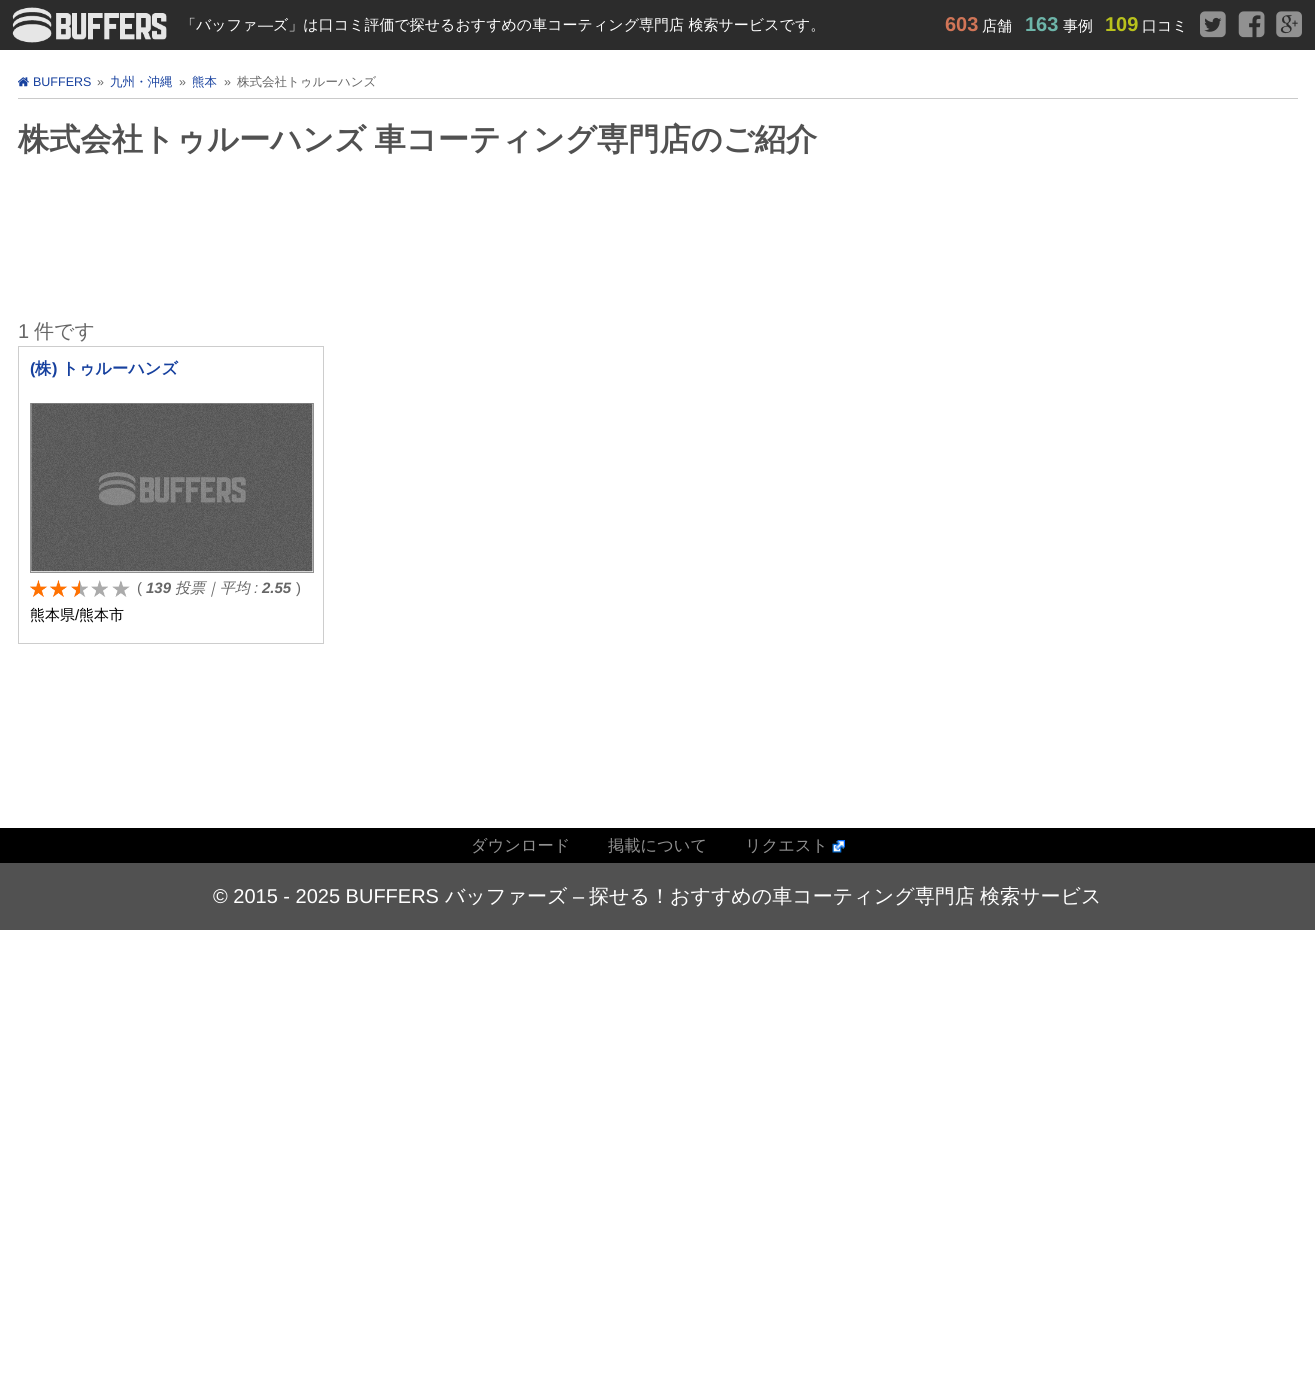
import math
import cairocffi as cairo

surface = cairo.ImageSurface(cairo.FORMAT_RGB24, 1315, 1394)
ctx = cairo.Context(surface)
options = cairo.FontOptions()
options.set_hint_metrics(cairo.HINT_METRICS_OFF)
options.set_hint_style(cairo.HINT_STYLE_NONE)
ctx.set_font_options(options)
ctx.set_miter_limit(4)


def rgb(r, g, b):
    ctx.set_source_rgb(r / 255, g / 255, b / 255)


def face(family, size, italic, bold):
    ctx.select_font_face(family, cairo.FONT_SLANT_ITALIC if italic else cairo.FONT_SLANT_NORMAL, cairo.FONT_WEIGHT_BOLD if bold else cairo.FONT_WEIGHT_NORMAL)
    ctx.set_font_size(size)


def label(x, y, s):
    ctx.move_to(x, y)
    ctx.show_text(s)


def tracked(x, y, s, letter, word):
    ctx.move_to(x, y)
    for ch in s:
        ctx.show_text(ch)
        ctx.rel_move_to(letter + word * (ch == ' '), 0)


def rect(x, y, w, h):
    ctx.rectangle(x, y, w, h)
    ctx.fill()


def image(path, x, y, w, h):
    ctx.save()
    ctx.set_source_surface(cairo.ImageSurface.create_from_png(path), x, y)
    ctx.rectangle(x, y, w, h)
    ctx.fill()
    ctx.restore()


rgb(255, 255, 255)
ctx.paint()
rgb(44, 44, 44)
rect(0, 0, 1315, 50)
image('image0.png', 12, 7, 155, 36)
face('WenQuanYi Zen Hei Medium', 15, 0, 0)
rgb(255, 255, 255)
label(181, 30, '「バッファ')
face('Liberation Sans', 15, 0, 0)
label(258, 30, '―')
face('WenQuanYi Zen Hei Medium', 15, 0, 0)
label(273, 30, 'ズ」は口コミ評価で探せるおすすめの車コーティング専門店 検索サービスです。')
face('Liberation Sans', 20, 0, 1)
rgb(209, 117, 87)
label(945, 31, '603')
face('WenQuanYi Zen Hei Medium', 15, 0, 0)
rgb(255, 255, 255)
label(982, 31, '店舗')
face('Liberation Sans', 20, 0, 1)
rgb(109, 181, 169)
label(1025, 31, '163')
face('WenQuanYi Zen Hei Medium', 15, 0, 0)
rgb(255, 255, 255)
label(1063, 31, '事例')
face('Liberation Sans', 20, 0, 1)
rgb(185, 194, 28)
label(1105, 31, '109')
face('WenQuanYi Zen Hei Medium', 15, 0, 0)
rgb(255, 255, 255)
label(1142, 31, '口コミ')
image('image1.png', 1200, 11, 26, 27)
image('image2.png', 1238, 11, 27, 27)
image('image3.png', 1276, 11, 26, 27)
rgb(202, 202, 202)
rect(18, 98, 1280, 1)
image('image4.png', 18, 77, 11, 10)
face('Liberation Sans', 12.5, 0, 0)
rgb(22, 64, 158)
label(33, 86, 'BUFFERS')
rgb(102, 102, 102)
label(97, 86, '»')
face('WenQuanYi Zen Hei Medium', 12.5, 0, 0)
rgb(22, 64, 158)
label(110, 86, '九州・沖縄')
face('Liberation Sans', 12.5, 0, 0)
rgb(102, 102, 102)
label(179, 86, '»')
face('WenQuanYi Zen Hei Medium', 12.5, 0, 0)
rgb(22, 64, 158)
label(192, 86, '熊本')
face('Liberation Sans', 12.5, 0, 0)
rgb(102, 102, 102)
label(224, 86, '»')
face('WenQuanYi Zen Hei Medium', 12.5, 0, 0)
label(237, 86, '株式会社トゥルーハンズ')
face('WenQuanYi Zen Hei', 31.25, 0, 1)
rgb(81, 81, 81)
tracked(18, 150, '株式会社トゥルーハンズ 車コーティング専門店のご紹介', 0, -1)
face('Liberation Sans', 20, 0, 0)
rgb(102, 102, 102)
label(18, 338, '1')
face('WenQuanYi Zen Hei Medium', 20, 0, 0)
label(34, 338, '件です')
ctx.rectangle(18.5, 346.5, 305, 297)
rgb(205, 205, 205)
ctx.set_line_width(1)
ctx.stroke()
face('Liberation Sans', 16.25, 0, 1)
rgb(22, 64, 158)
label(30, 374, '(')
face('WenQuanYi Zen Hei', 16.25, 0, 1)
label(35, 374, '株')
face('Liberation Sans', 16.25, 0, 1)
label(52, 374, ')')
face('WenQuanYi Zen Hei', 16.25, 0, 1)
label(62, 374, 'トゥルーハンズ')
ctx.rectangle(30.5, 403.5, 283, 169)
rgb(145, 145, 145)
ctx.stroke()
image('image5.png', 31, 403, 282, 169)
image('image6.png', 30, 580, 18, 17)
image('image6.png', 50, 580, 18, 17)
image('image7.png', 71, 580, 17, 18)
image('image8.png', 91, 580, 17, 17)
image('image9.png', 112, 580, 18, 17)
face('Liberation Sans', 15, 0, 0)
rgb(102, 102, 102)
label(137, 593, '(')
face('Liberation Sans', 15, 1, 1)
label(146, 593, '139')
face('WenQuanYi Zen Hei Medium', 15, 1, 0)
label(175, 593, '投票｜平均')
face('Liberation Sans', 15, 1, 0)
label(254, 593, ':')
face('Liberation Sans', 15, 1, 1)
label(262, 593, '2.55')
face('Liberation Sans', 15, 0, 0)
label(296, 593, ')')
face('WenQuanYi Zen Hei Medium', 15, 0, 0)
rgb(0, 0, 0)
label(30, 620, '熊本県')
face('Liberation Sans', 15, 0, 0)
label(75, 620, '/')
face('WenQuanYi Zen Hei Medium', 15, 0, 0)
label(79, 620, '熊本市')
rect(0, 828, 1315, 35)
face('WenQuanYi Zen Hei Medium', 16.25, 0, 0)
rgb(145, 145, 145)
label(471, 851, 'ダウンロード')
label(608, 851, '掲載について')
label(745, 851, 'リクエスト')
image('image10.png', 832, 840, 13, 13)
rgb(81, 81, 81)
rect(0, 863, 1315, 67)
face('Liberation Sans', 20, 0, 0)
rgb(255, 255, 255)
label(213, 903, '© 2015 - 2025 BUFFERS')
face('WenQuanYi Zen Hei Medium', 20, 0, 0)
label(445, 903, 'バッファーズ')
face('Liberation Sans', 20, 0, 0)
label(573, 903, '–')
face('WenQuanYi Zen Hei Medium', 20, 0, 0)
label(589, 903, '探せる！おすすめの車コーティング専門店')
label(980, 903, '検索サービス')
surface.write_to_png('render.png')
